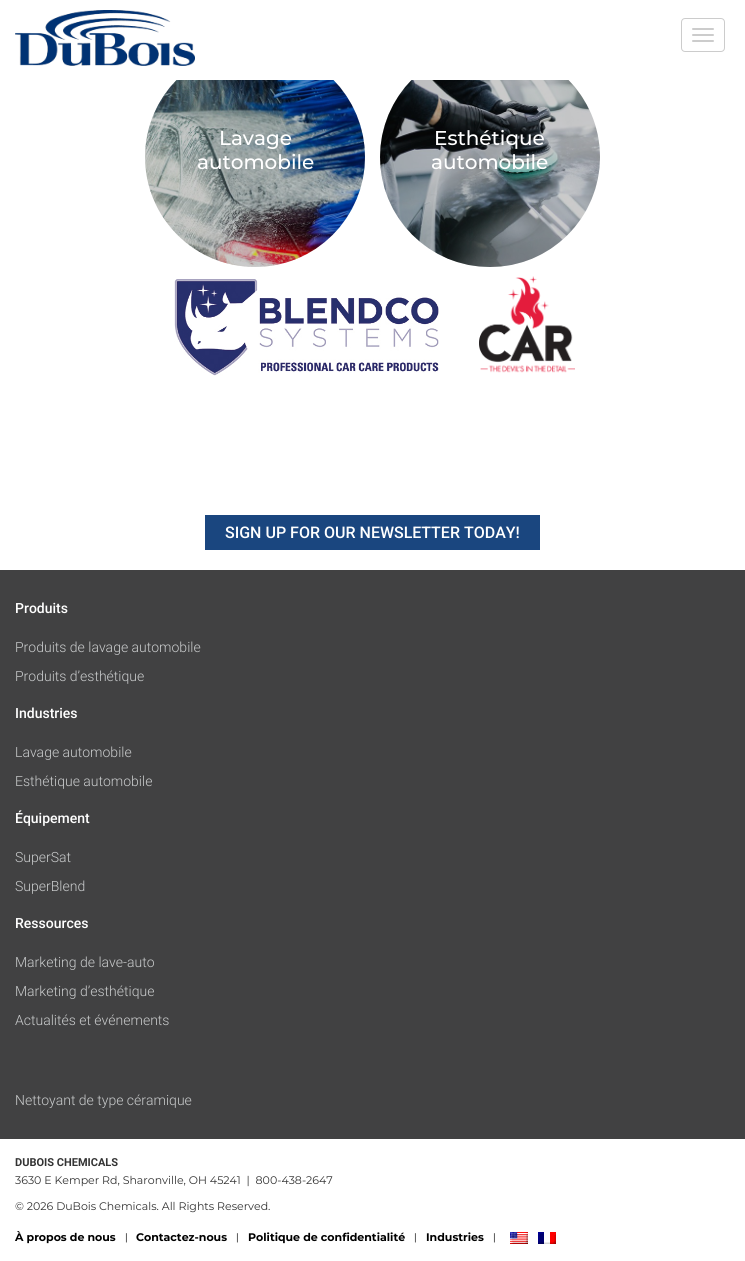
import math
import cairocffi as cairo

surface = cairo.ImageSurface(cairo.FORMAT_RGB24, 745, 1261)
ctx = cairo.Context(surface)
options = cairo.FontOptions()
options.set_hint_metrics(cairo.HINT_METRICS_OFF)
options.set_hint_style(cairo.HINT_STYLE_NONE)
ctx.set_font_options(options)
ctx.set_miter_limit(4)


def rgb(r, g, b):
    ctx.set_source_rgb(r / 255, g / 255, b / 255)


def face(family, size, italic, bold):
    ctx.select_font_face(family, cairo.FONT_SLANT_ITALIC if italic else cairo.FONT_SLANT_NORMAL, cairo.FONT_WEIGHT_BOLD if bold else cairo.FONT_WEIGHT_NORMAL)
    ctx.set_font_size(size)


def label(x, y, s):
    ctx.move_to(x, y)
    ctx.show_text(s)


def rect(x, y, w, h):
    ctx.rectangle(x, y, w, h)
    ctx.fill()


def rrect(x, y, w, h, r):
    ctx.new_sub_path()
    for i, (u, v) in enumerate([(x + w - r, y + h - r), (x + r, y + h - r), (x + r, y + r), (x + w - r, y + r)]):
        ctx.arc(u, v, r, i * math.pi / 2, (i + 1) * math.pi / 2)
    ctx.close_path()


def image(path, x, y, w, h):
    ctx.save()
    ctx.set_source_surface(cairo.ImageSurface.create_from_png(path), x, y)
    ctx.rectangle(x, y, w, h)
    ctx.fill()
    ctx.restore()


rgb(255, 255, 255)
ctx.paint()
image('image1.png', 145, 80, 220, 187)
ctx.set_source_rgba(0, 0, 0, 0.2)
ctx.arc(255, 157, 110, 0, 2 * math.pi)
ctx.fill()
image('image2.png', 380, 80, 220, 187)
ctx.arc(490, 157, 110, 0, 2 * math.pi)
ctx.fill()
rgb(255, 255, 255)
rect(176, 47, 393, 33)
image('image0.png', 15, 10, 180, 56)
rrect(681.5, 18.5, 43, 33, 3.5)
rgb(204, 204, 204)
ctx.set_line_width(1)
ctx.stroke()
rrect(692, 28, 22, 2, 1)
ctx.fill()
rrect(692, 34, 22, 2, 1)
ctx.fill()
rrect(692, 40, 22, 2, 1)
ctx.fill()
face('Montserrat Medium', 20, 0, 0)
rgb(255, 255, 255)
label(219, 145, 'Lavage')
label(197, 169, 'automobile')
label(434, 145, 'Esthétique')
label(431, 169, 'automobile')
image('image3.png', 174, 279, 265, 97)
image('image4.png', 479, 276, 96, 97)
rgb(26, 70, 127)
rect(205, 515, 335, 35)
face('Roboto Medium', 16, 0, 0)
rgb(255, 255, 255)
label(225, 538, 'SIGN UP FOR OUR NEWSLETTER TODAY!')
rgb(65, 65, 66)
rect(0, 570, 745, 569)
face('Roboto Medium', 14, 0, 0)
rgb(255, 255, 255)
label(15, 613, 'Produits')
face('Roboto Light', 14, 0, 0)
rgb(201, 203, 204)
label(15, 652, 'Produits de lavage automobile')
label(15, 681, 'Produits d’esthétique')
face('Roboto Medium', 14, 0, 0)
rgb(255, 255, 255)
label(15, 718, 'Industries')
face('Roboto Light', 14, 0, 0)
rgb(201, 203, 204)
label(15, 757, 'Lavage automobile')
label(15, 786, 'Esthétique automobile')
face('Roboto Medium', 14, 0, 0)
rgb(255, 255, 255)
label(15, 823, 'Équipement')
face('Roboto Light', 14, 0, 0)
rgb(201, 203, 204)
label(15, 862, 'SuperSat')
label(15, 891, 'SuperBlend')
face('Roboto Medium', 14, 0, 0)
rgb(255, 255, 255)
label(15, 928, 'Ressources')
face('Roboto Light', 14, 0, 0)
rgb(201, 203, 204)
label(15, 967, 'Marketing de lave-auto')
label(15, 996, 'Marketing d’esthétique')
label(15, 1025, 'Actualités et événements')
label(15, 1105, 'Nettoyant de type céramique')
face('Roboto', 11, 0, 1)
rgb(51, 51, 51)
label(15, 1166, 'DUBOIS CHEMICALS')
face('Montserrat', 11, 0, 0)
label(15, 1184, '3630 E Kemper Rd, Sharonville, OH 45241  |  800-438-2647')
label(15, 1210, '© 2026 DuBois Chemicals. All Rights Reserved.')
face('Montserrat', 11, 0, 1)
rgb(0, 0, 0)
label(15, 1241, 'À propos de nous')
face('Roboto', 11, 0, 0)
rgb(51, 51, 51)
label(125, 1241, '|')
face('Montserrat', 11, 0, 1)
rgb(0, 0, 0)
label(136, 1241, 'Contactez-nous')
face('Roboto', 11, 0, 0)
rgb(51, 51, 51)
label(236, 1241, '|')
face('Montserrat', 11, 0, 1)
rgb(0, 0, 0)
label(248, 1241, 'Politique de confidentialité')
face('Roboto', 11, 0, 0)
rgb(51, 51, 51)
label(414, 1241, '|')
face('Montserrat', 11, 0, 1)
rgb(0, 0, 0)
label(426, 1241, 'Industries')
face('Roboto', 11, 0, 0)
rgb(51, 51, 51)
label(493, 1241, '|')
image('image5.png', 510, 1232, 18, 12)
image('image6.png', 538, 1232, 18, 12)
surface.write_to_png('render.png')
